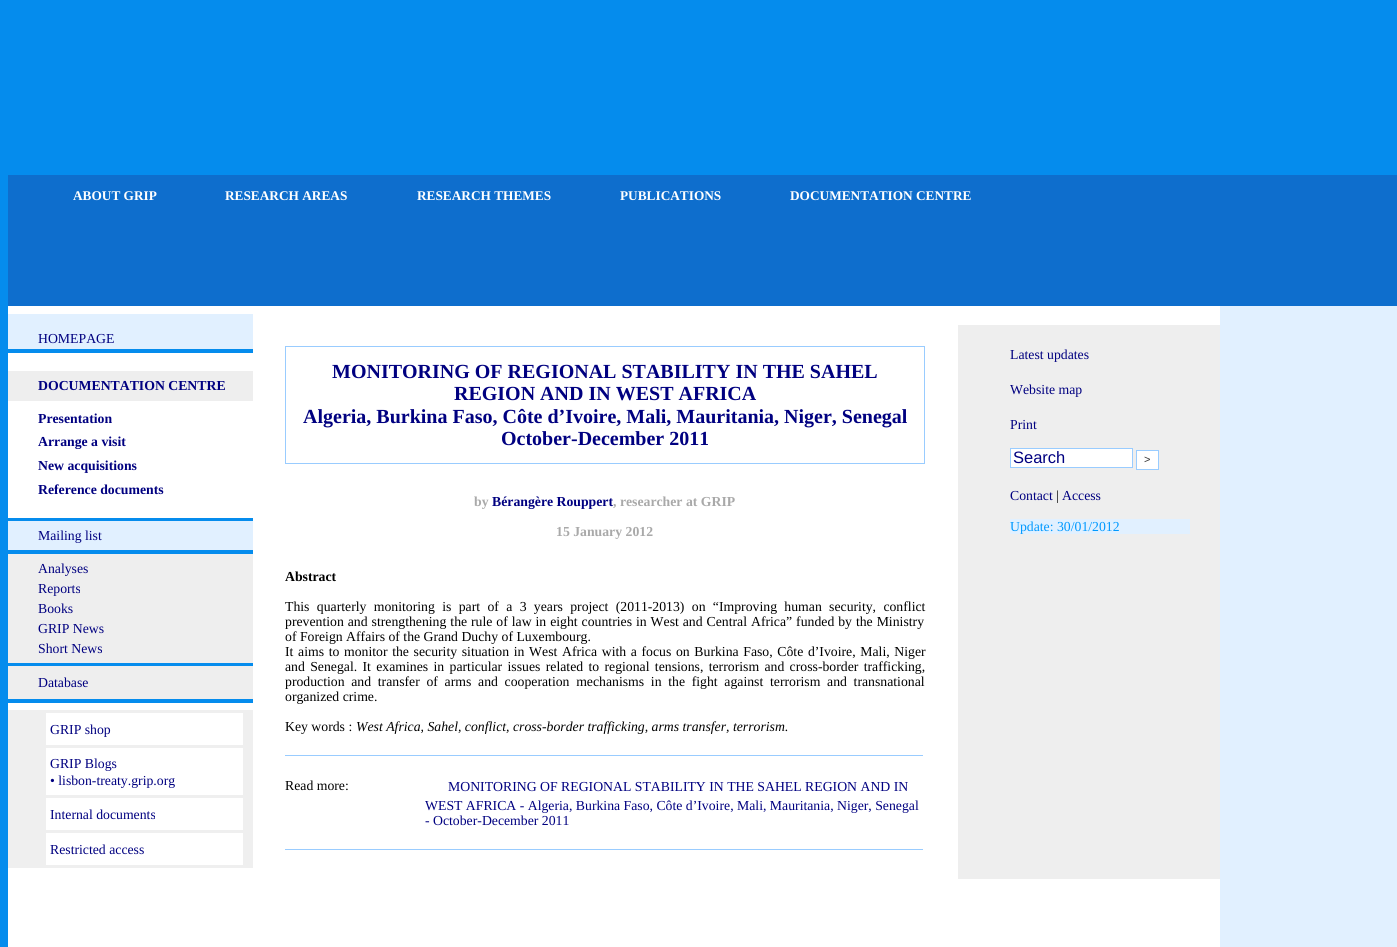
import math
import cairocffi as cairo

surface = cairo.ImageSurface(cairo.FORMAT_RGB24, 1397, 947)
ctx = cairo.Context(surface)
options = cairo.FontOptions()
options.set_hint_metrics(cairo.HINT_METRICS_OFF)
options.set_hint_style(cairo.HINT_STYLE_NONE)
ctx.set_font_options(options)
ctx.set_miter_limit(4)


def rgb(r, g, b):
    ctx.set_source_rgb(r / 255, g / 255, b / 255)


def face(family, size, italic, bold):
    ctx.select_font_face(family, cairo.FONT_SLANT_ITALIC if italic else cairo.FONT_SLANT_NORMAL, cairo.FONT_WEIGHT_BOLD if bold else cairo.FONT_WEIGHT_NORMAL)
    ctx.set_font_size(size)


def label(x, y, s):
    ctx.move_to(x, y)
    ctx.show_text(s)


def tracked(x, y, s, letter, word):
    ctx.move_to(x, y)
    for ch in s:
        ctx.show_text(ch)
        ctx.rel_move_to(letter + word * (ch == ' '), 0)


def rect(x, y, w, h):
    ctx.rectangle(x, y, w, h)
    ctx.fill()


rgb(255, 255, 255)
ctx.paint()
rgb(5, 140, 237)
rect(0, 0, 8, 947)
rect(8, 0, 1389, 175)
rgb(14, 110, 205)
rect(8, 175, 1389, 131)
face('Liberation Serif', 13.3, 0, 1)
rgb(255, 255, 255)
label(73, 200, 'ABOUT GRIP')
label(225, 200, 'RESEARCH AREAS')
label(417, 200, 'RESEARCH THEMES')
label(620, 200, 'PUBLICATIONS')
label(790, 200, 'DOCUMENTATION CENTRE')
rgb(225, 240, 255)
rect(8, 314, 245, 35)
face('Liberation Serif', 13.75, 0, 0)
rgb(0, 0, 128)
label(38, 343, 'HOMEPAGE')
rgb(5, 140, 237)
rect(8, 349, 245, 4)
rgb(238, 238, 238)
rect(8, 371, 245, 30)
face('Liberation Serif', 13.75, 0, 1)
rgb(0, 0, 128)
label(38, 390, 'DOCUMENTATION CENTRE')
label(38, 423, 'Presentation')
label(38, 446, 'Arrange a visit')
label(38, 470, 'New acquisitions')
label(38, 494, 'Reference documents')
rgb(5, 140, 237)
rect(8, 518, 245, 3)
rgb(225, 240, 255)
rect(8, 521, 245, 29)
face('Liberation Serif', 13.75, 0, 0)
rgb(0, 0, 128)
label(38, 540, 'Mailing list')
rgb(5, 140, 237)
rect(8, 550, 245, 4)
rgb(238, 238, 238)
rect(8, 554, 245, 109)
rgb(0, 0, 128)
label(38, 573, 'Analyses')
label(38, 593, 'Reports')
label(38, 613, 'Books')
label(38, 633, 'GRIP News')
label(38, 653, 'Short News')
rgb(5, 140, 237)
rect(8, 663, 245, 3)
rgb(238, 238, 238)
rect(8, 666, 245, 33)
rgb(0, 0, 128)
label(38, 687, 'Database')
rgb(5, 140, 237)
rect(8, 699, 245, 4)
rgb(239, 239, 239)
rect(8, 710, 245, 158)
rgb(255, 255, 255)
rect(46, 713, 197, 32)
rgb(0, 0, 128)
label(50, 734, 'GRIP shop')
rgb(255, 255, 255)
rect(46, 748, 197, 47)
rgb(0, 0, 128)
label(50, 768, 'GRIP Blogs')
label(50, 785, '• lisbon-treaty.grip.org')
rgb(255, 255, 255)
rect(46, 798, 197, 32)
rgb(0, 0, 128)
label(50, 819, 'Internal documents')
rgb(255, 255, 255)
rect(46, 833, 197, 32)
rgb(0, 0, 128)
label(50, 854, 'Restricted access')
ctx.rectangle(285.5, 346.5, 639, 117)
rgb(153, 204, 255)
ctx.set_line_width(1)
ctx.stroke()
face('Liberation Serif', 20, 0, 1)
rgb(0, 0, 128)
label(332, 378, 'MONITORING OF REGIONAL STABILITY IN THE SAHEL')
label(454, 400, 'REGION AND IN WEST AFRICA')
label(303, 423, 'Algeria, Burkina Faso, Côte d’Ivoire, Mali, Mauritania, Niger, Senegal')
label(501, 445, 'October-December 2011')
face('Liberation Serif', 13.75, 0, 1)
rgb(169, 169, 169)
label(474, 506, 'by')
rgb(0, 0, 128)
label(492, 506, 'Bérangère Rouppert')
rgb(169, 169, 169)
label(613, 506, ', researcher at GRIP')
label(556, 536, '15 January 2012')
rgb(0, 0, 0)
label(285, 581, 'Abstract')
face('Liberation Serif', 13.75, 0, 0)
tracked(285, 611, 'This quarterly monitoring is part of a 3 years project (2011-2013) on “Improving human security, conflict', 0, 3.9)
tracked(285, 626, 'prevention and strengthening the rule of law in eight countries in West and Central Africa” funded by the Ministry', 0, 0.5)
label(285, 641, 'of Foreign Affairs of the Grand Duchy of Luxembourg.')
tracked(285, 656, 'It aims to monitor the security situation in West Africa with a focus on Burkina Faso, Côte d’Ivoire, Mali, Niger', 0, 1.2)
tracked(285, 671, 'and Senegal. It examines in particular issues related to regional tensions, terrorism and cross-border trafficking,', 0, 1.9)
tracked(285, 686, 'production and transfer of arms and cooperation mechanisms in the fight against terrorism and transnational', 0, 3.25)
label(285, 701, 'organized crime.')
label(285, 731, 'Key words :')
face('Liberation Serif', 13.75, 1, 0)
label(356, 731, 'West Africa, Sahel, conflict, cross-border trafficking, arms transfer, terrorism.')
rgb(153, 204, 255)
rect(285, 755, 638, 1)
face('Liberation Serif', 13.75, 0, 0)
rgb(0, 0, 0)
label(285, 790, 'Read more:')
rgb(0, 0, 128)
label(448, 791, 'MONITORING OF REGIONAL STABILITY IN THE SAHEL REGION AND IN')
label(425, 810, 'WEST AFRICA - Algeria, Burkina Faso, Côte d’Ivoire, Mali, Mauritania, Niger, Senegal')
label(425, 825, '- October-December 2011')
rgb(153, 204, 255)
rect(285, 849, 638, 1)
rgb(238, 238, 238)
rect(958, 325, 262, 554)
rgb(0, 0, 128)
label(1010, 359, 'Latest updates')
label(1010, 394, 'Website map')
label(1010, 429, 'Print')
rgb(255, 255, 255)
ctx.rectangle(1010.5, 448.5, 122, 19)
ctx.fill_preserve()
rgb(153, 204, 255)
ctx.stroke()
face('Liberation Sans', 16.5, 0, 0)
rgb(0, 0, 128)
label(1013, 463, 'Search')
rgb(255, 255, 255)
ctx.rectangle(1136.5, 450.5, 22, 19)
ctx.fill_preserve()
rgb(153, 204, 255)
ctx.stroke()
face('Liberation Sans', 11, 0, 0)
rgb(51, 51, 51)
label(1144, 463, '>')
face('Liberation Serif', 13.75, 0, 0)
rgb(0, 0, 128)
label(1010, 500, 'Contact')
rgb(0, 0, 0)
label(1056, 500, '|')
rgb(0, 0, 128)
label(1062, 500, 'Access')
rgb(225, 240, 255)
rect(1010, 519, 180, 15)
rgb(0, 153, 255)
label(1010, 531, 'Update: 30/01/2012')
rgb(225, 240, 255)
rect(1220, 306, 177, 641)
surface.write_to_png('render.png')
